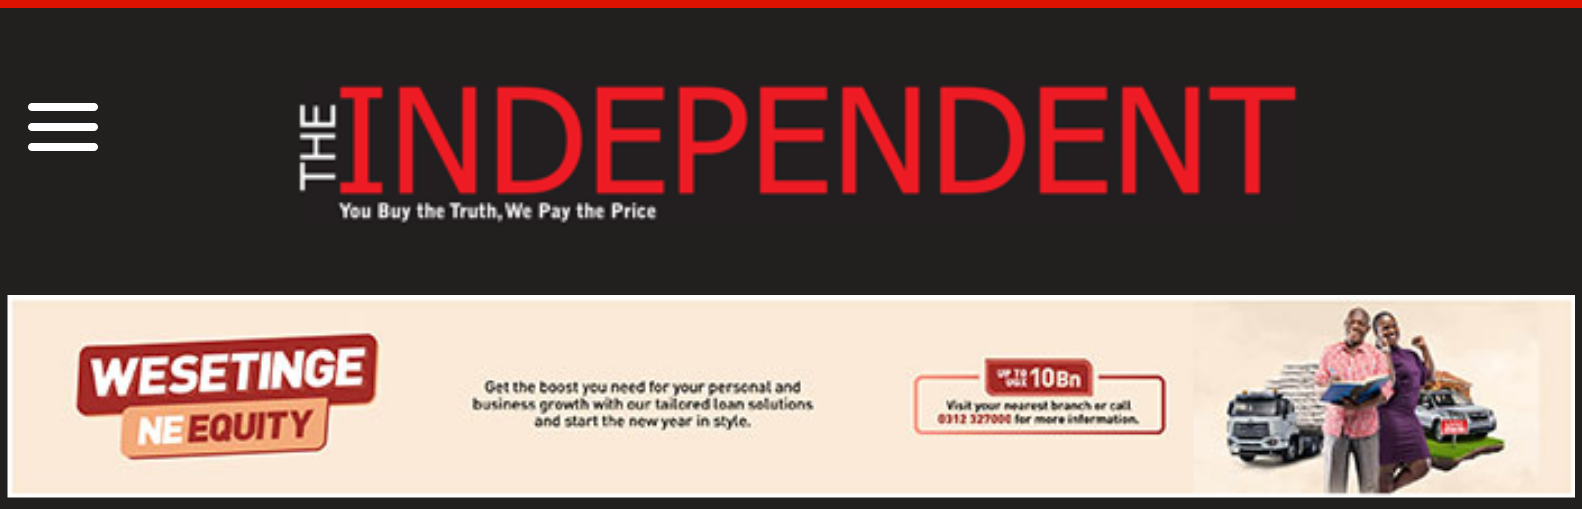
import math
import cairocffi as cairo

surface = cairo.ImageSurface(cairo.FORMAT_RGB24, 1582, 509)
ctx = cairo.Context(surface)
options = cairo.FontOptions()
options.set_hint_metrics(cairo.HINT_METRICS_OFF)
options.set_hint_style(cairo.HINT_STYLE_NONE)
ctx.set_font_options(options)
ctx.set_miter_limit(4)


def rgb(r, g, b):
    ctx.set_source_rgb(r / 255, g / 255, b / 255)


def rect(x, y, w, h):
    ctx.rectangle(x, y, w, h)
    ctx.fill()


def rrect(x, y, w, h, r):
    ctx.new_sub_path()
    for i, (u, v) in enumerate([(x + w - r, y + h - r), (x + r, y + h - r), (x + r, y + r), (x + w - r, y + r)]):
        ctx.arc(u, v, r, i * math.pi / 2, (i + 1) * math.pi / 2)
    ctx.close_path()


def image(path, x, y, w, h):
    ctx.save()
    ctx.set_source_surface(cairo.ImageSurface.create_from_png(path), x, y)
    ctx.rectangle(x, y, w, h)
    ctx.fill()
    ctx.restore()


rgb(33, 32, 30)
ctx.paint()
rgb(221, 18, 1)
rect(0, 0, 1582, 8)
rgb(255, 255, 255)
rrect(28, 103, 70, 8, 4)
ctx.fill()
rrect(28, 123, 70, 8, 4)
ctx.fill()
rrect(28, 143, 70, 8, 4)
ctx.fill()
image('image0.png', 298, 83, 1000, 143)
image('image1.png', 7, 295, 1568, 203)
surface.write_to_png('render.png')
